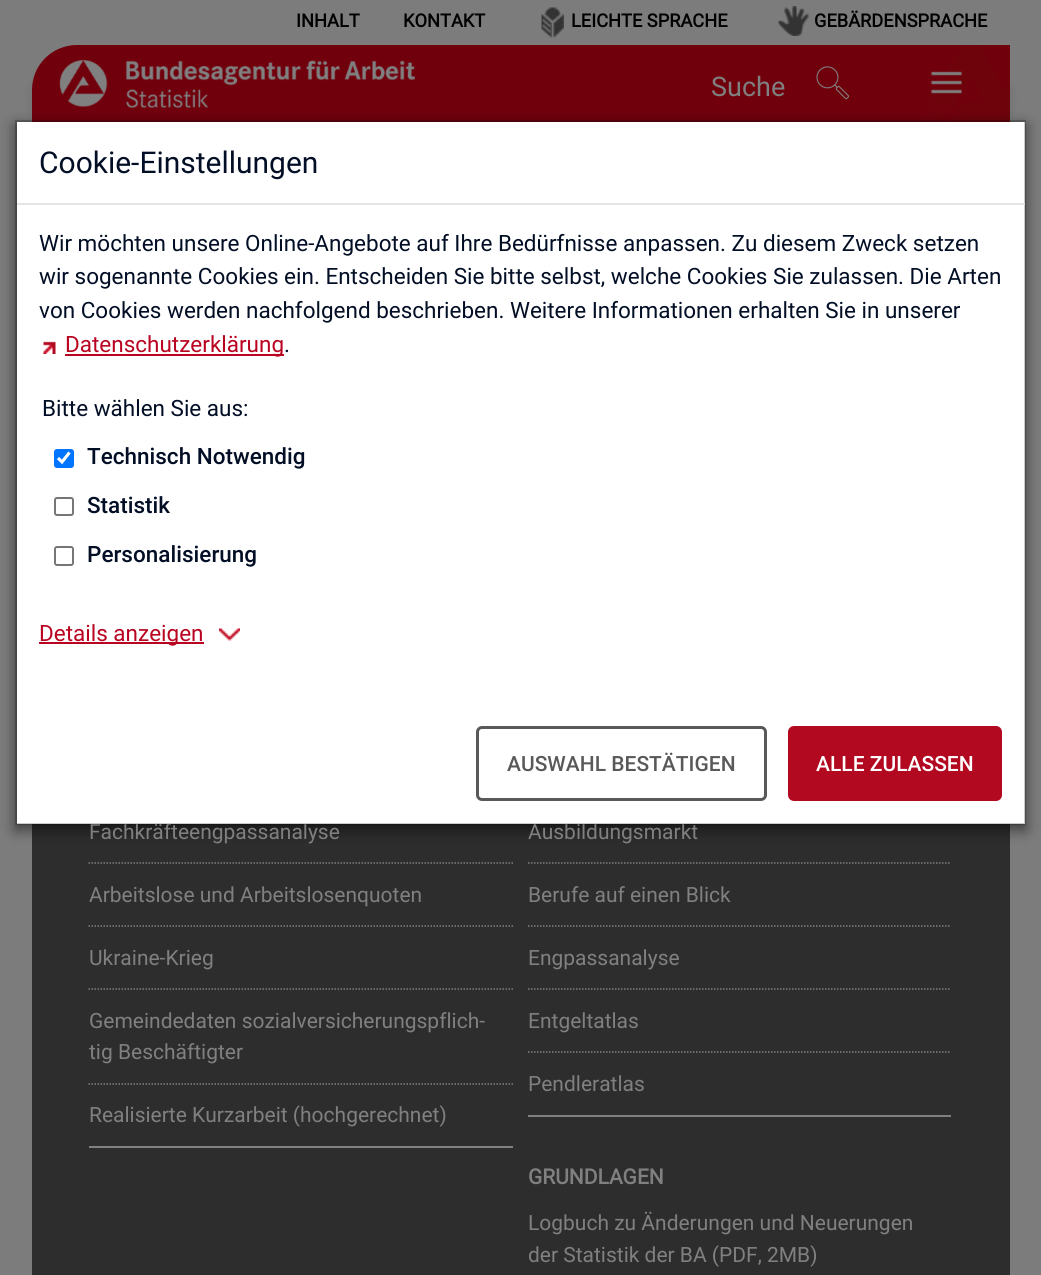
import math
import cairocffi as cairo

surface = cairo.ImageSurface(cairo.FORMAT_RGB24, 1041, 1275)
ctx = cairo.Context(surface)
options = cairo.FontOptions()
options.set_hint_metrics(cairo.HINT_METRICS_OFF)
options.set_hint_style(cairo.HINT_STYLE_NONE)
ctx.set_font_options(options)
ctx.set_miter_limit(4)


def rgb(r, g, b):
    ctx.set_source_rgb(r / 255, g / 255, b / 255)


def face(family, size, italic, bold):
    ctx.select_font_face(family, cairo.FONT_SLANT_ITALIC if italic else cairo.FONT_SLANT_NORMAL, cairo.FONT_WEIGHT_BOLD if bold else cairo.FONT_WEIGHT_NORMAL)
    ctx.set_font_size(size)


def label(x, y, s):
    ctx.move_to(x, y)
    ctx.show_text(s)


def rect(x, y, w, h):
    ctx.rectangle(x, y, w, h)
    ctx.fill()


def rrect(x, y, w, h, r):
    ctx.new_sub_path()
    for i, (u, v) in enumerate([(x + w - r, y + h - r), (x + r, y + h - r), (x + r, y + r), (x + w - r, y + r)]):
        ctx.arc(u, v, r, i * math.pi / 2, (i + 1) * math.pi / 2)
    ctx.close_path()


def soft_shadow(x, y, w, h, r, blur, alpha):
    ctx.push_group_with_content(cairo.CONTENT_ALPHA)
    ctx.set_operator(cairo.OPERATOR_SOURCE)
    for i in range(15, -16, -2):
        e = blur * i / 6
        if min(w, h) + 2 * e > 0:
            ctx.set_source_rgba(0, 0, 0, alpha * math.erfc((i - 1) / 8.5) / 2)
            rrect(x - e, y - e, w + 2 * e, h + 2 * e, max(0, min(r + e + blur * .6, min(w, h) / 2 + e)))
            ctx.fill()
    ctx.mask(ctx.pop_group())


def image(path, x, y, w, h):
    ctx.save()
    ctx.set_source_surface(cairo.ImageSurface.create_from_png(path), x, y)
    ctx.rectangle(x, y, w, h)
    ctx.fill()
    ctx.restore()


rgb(124, 124, 124)
ctx.paint()
face('Roboto', 18.25, 0, 1)
rgb(0, 0, 0)
label(296, 27, 'INHALT')
label(403, 27, 'KONTAKT')
image('image0.png', 541, 7, 23, 31)
label(571, 27, 'LEICHTE SPRACHE')
image('image1.png', 778, 6, 31, 30)
label(814, 27, 'GEBÄRDENSPRACHE')
rgb(0, 0, 0)
soft_shadow(35, 66, 972, 71, 42, 7.5, 0.16)
rgb(113, 0, 13)
ctx.new_path()
ctx.move_to(77, 45)
ctx.line_to(1010, 45)
ctx.line_to(1010, 122)
ctx.line_to(32, 122)
ctx.line_to(32, 90)
ctx.curve_to(32, 65, 52, 45, 77, 45)
ctx.close_path()
ctx.fill()
gradient = cairo.LinearGradient(946, 152, 970, 110)
gradient.add_color_stop_rgba(0.2, 0.443, 0, 0.051, 1)
gradient.add_color_stop_rgba(0.97, 0.431, 0.012, 0.047, 1)
ctx.set_source(gradient)
ctx.new_path()
ctx.move_to(944, 121)
ctx.line_to(970, 77)
ctx.line_to(985, 102)
ctx.curve_to(960, 102, 963, 100, 950, 121)
ctx.line_to(1010, 121)
ctx.line_to(1010, 98)
ctx.line_to(978, 45)
ctx.line_to(963, 45)
ctx.line_to(917, 121)
ctx.close_path()
ctx.fill()
image('image2.png', 59, 59, 356, 49)
face('Roboto', 27, 0, 0)
rgb(128, 128, 128)
label(711, 96, 'Suche')
image('image3.png', 816, 66, 34, 34)
image('image4.png', 931, 71, 31, 23)
rgb(45, 45, 45)
rect(32, 824, 978, 451)
rgb(0, 0, 0)
soft_shadow(15, 125, 1011, 705, 0, 7, 0.5)
face('Roboto', 21, 0, 0)
rgb(128, 128, 128)
label(89, 839, 'Fachkräfteengpassanalyse')
label(528, 839, 'Ausbildungsmarkt')
rgb(255, 255, 255)
rect(17, 122, 1008, 702)
ctx.rectangle(16, 121, 1009, 703)
ctx.set_source_rgba(0, 0, 0, 0.2)
ctx.stroke()
rgb(229, 229, 229)
rect(17, 203, 1008, 2)
face('Roboto', 30, 0, 0)
rgb(2, 14, 37)
label(39, 173, 'Cookie-Einstellungen')
face('Roboto', 22.5, 0, 0)
label(39, 251, 'Wir möchten unsere Online-Angebote auf Ihre Bedürfnisse anpassen. Zu diesem Zweck setzen')
label(39, 284, 'wir sogenannte Cookies ein. Entscheiden Sie bitte selbst, welche Cookies Sie zulassen. Die Arten')
label(39, 318, 'von Cookies werden nachfolgend beschrieben. Weitere Informationen erhalten Sie in unserer')
image('image5.png', 43, 341, 13, 13)
rgb(185, 3, 32)
rect(65, 354, 219, 2)
label(65, 352, 'Datenschutzerklärung')
rgb(2, 14, 37)
label(284, 352, '.')
label(42, 416, 'Bitte wählen Sie aus:')
rgb(0, 117, 255)
rrect(54, 449, 20, 19, 3)
ctx.fill()
ctx.new_path()
ctx.move_to(58, 458)
ctx.line_to(62, 462)
ctx.line_to(69.5, 452.5)
rgb(255, 255, 255)
ctx.set_line_width(3.1)
ctx.stroke()
face('Roboto Medium', 22.5, 0, 0)
rgb(2, 14, 37)
label(87, 464, 'Technisch Notwendig')
rrect(55, 498, 18, 17, 2)
rgb(118, 118, 118)
ctx.set_line_width(2)
ctx.stroke()
rgb(2, 14, 37)
label(87, 513, 'Statistik')
rrect(55, 547, 18, 18, 2)
rgb(118, 118, 118)
ctx.stroke()
rgb(2, 14, 37)
label(87, 562, 'Personalisierung')
rgb(185, 3, 32)
rect(39, 642, 165, 2)
face('Roboto', 22.5, 0, 0)
label(39, 641, 'Details anzeigen')
image('image6.png', 219, 628, 21, 13)
rrect(477.5, 727.5, 288, 72, 4.5)
rgb(89, 89, 89)
ctx.set_line_width(3)
ctx.stroke()
face('Roboto Medium', 21, 0, 0)
label(507, 771, 'AUSWAHL BESTÄTIGEN')
rgb(179, 9, 32)
rrect(788, 726, 214, 75, 6)
ctx.fill()
rgb(255, 255, 255)
label(816, 771, 'ALLE ZULASSEN')
ctx.new_path()
ctx.move_to(88.5, 863)
ctx.line_to(513, 863)
rgb(128, 128, 128)
ctx.set_line_width(1.5)
ctx.set_dash([1.5, 1.5])
ctx.stroke()
ctx.new_path()
ctx.move_to(88.5, 926)
ctx.line_to(513, 926)
ctx.stroke()
face('Roboto', 21, 0, 0)
label(89, 902, 'Arbeitslose und Arbeitslosenquoten')
ctx.new_path()
ctx.move_to(88.5, 989)
ctx.line_to(513, 989)
ctx.stroke()
label(89, 965, 'Ukraine-Krieg')
ctx.new_path()
ctx.move_to(88.5, 1084)
ctx.line_to(513, 1084)
ctx.stroke()
label(89, 1028, 'Gemeindedaten sozialversicherungspflich-')
label(89, 1059, 'tig Beschäftigter')
rect(89, 1146, 424, 2)
label(89, 1122, 'Realisierte Kurzarbeit (hochgerechnet)')
ctx.new_path()
ctx.move_to(528, 863)
ctx.line_to(951, 863)
ctx.stroke()
ctx.new_path()
ctx.move_to(528, 926)
ctx.line_to(951, 926)
ctx.stroke()
label(528, 902, 'Berufe auf einen Blick')
ctx.new_path()
ctx.move_to(528, 989)
ctx.line_to(951, 989)
ctx.stroke()
label(528, 965, 'Engpassanalyse')
ctx.new_path()
ctx.move_to(528, 1052)
ctx.line_to(951, 1052)
ctx.stroke()
label(528, 1028, 'Entgeltatlas')
rect(528, 1115, 423, 2)
label(528, 1091, 'Pendleratlas')
face('Roboto', 21, 0, 1)
label(528, 1184, 'GRUNDLAGEN')
face('Roboto', 21, 0, 0)
label(528, 1230, 'Logbuch zu Änderungen und Neuerungen')
label(528, 1262, 'der Statistik der BA (PDF, 2MB)')
surface.write_to_png('render.png')
